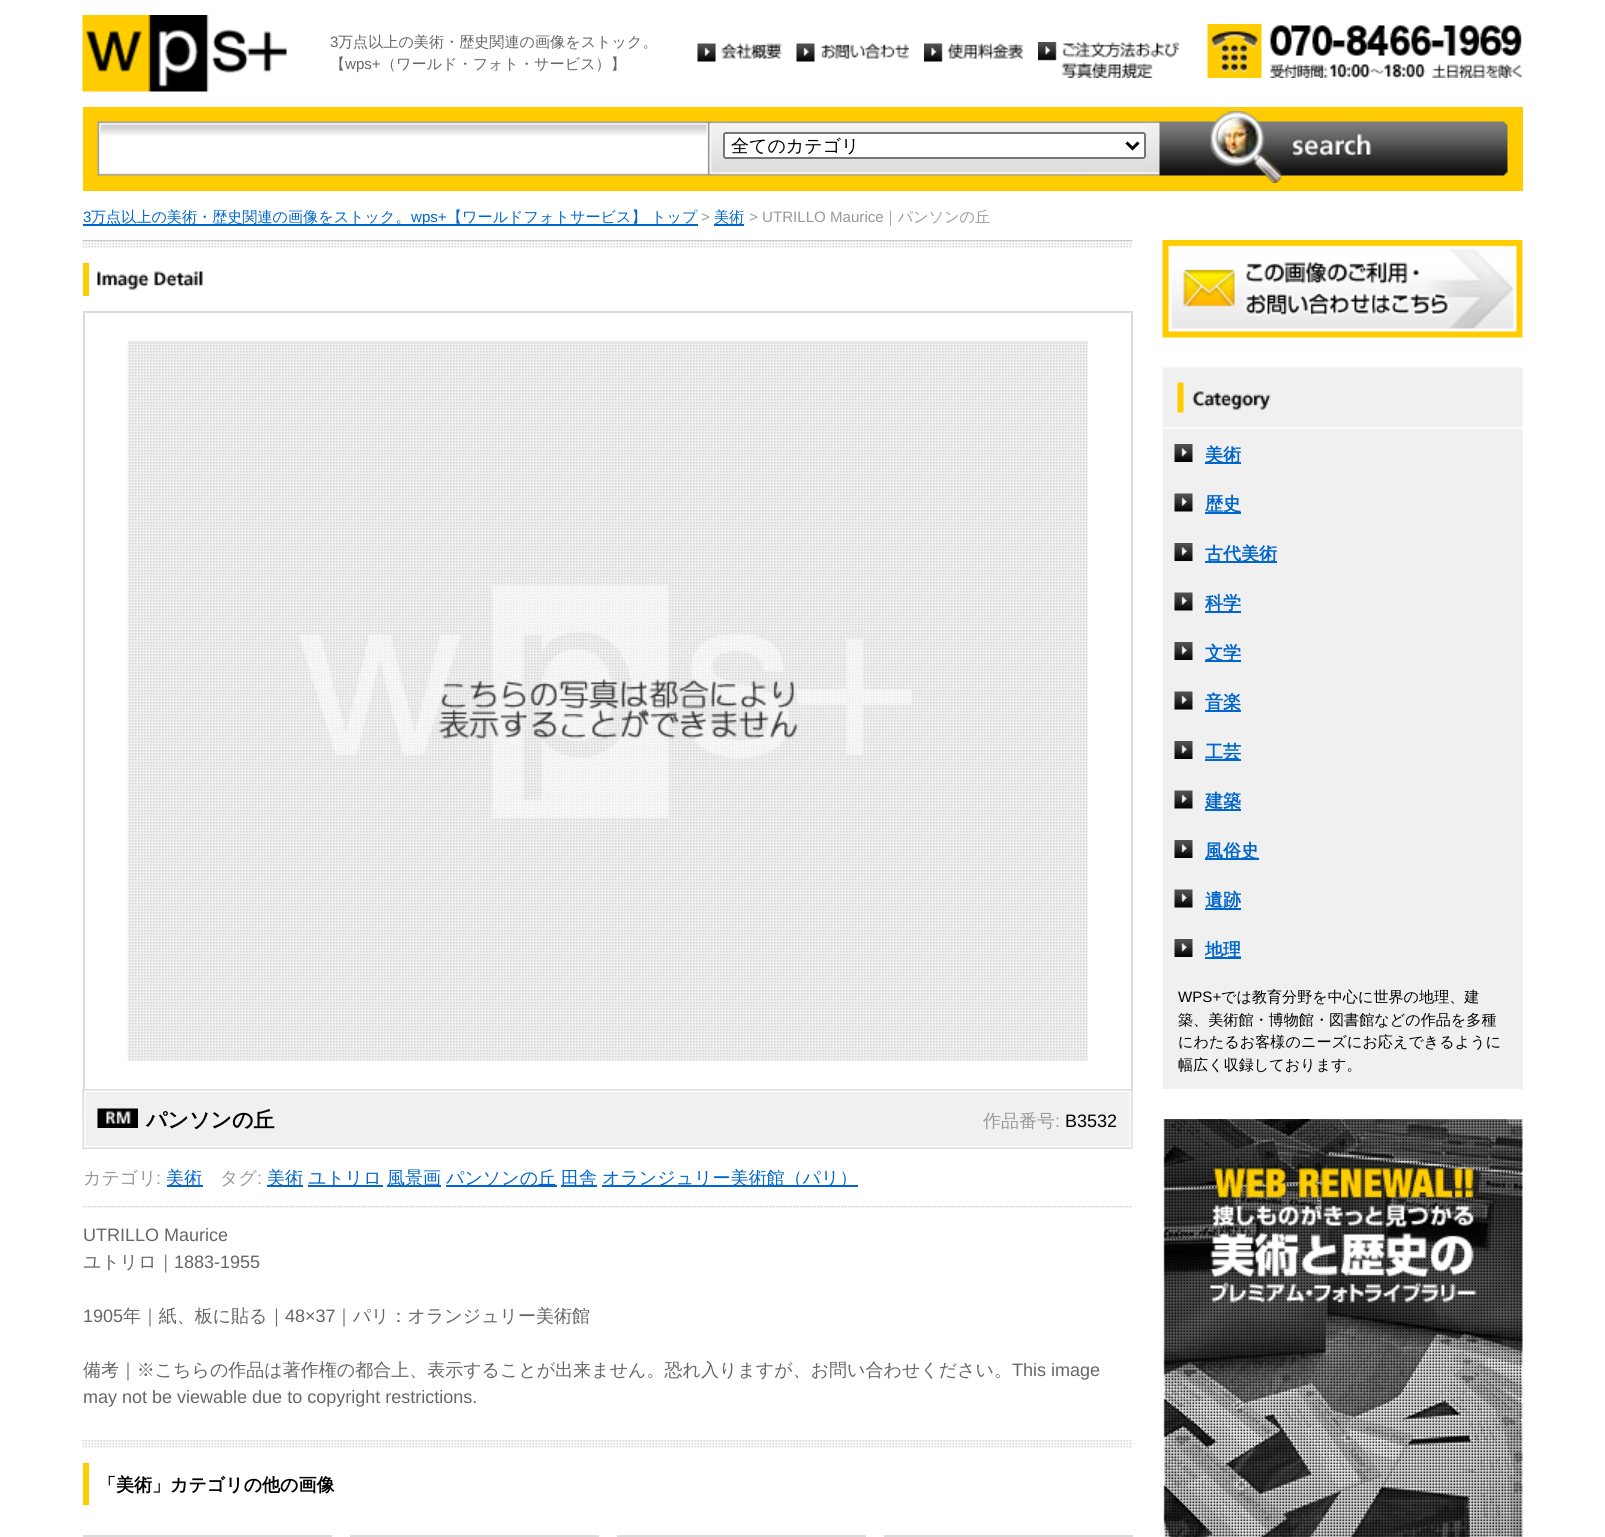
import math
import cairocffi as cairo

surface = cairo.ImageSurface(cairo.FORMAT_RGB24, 1605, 1537)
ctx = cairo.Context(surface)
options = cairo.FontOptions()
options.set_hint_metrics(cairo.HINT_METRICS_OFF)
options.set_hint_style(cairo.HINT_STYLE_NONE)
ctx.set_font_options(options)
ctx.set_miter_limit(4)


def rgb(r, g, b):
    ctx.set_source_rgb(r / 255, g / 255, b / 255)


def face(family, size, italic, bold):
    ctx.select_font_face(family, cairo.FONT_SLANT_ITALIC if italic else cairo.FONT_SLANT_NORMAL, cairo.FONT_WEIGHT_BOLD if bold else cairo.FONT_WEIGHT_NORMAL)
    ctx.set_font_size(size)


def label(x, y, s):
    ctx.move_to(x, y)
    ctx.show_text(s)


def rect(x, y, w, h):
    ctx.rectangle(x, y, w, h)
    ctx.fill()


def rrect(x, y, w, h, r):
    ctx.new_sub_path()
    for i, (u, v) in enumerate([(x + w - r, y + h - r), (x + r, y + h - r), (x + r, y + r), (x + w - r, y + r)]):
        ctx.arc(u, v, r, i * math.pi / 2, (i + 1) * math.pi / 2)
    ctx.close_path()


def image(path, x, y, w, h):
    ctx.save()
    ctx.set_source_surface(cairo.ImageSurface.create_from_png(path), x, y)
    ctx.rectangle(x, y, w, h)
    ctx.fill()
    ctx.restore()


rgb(255, 255, 255)
ctx.paint()
image('image0.png', 82, 15, 205, 77)
face('Liberation Sans', 15.1, 0, 0)
rgb(102, 102, 102)
label(330, 47, '3')
face('WenQuanYi Zen Hei Medium', 15.1, 0, 0)
label(338, 47, '万点以上の美術・歴史関連の画像をストック。')
label(330, 69, '【')
face('Liberation Sans', 15.1, 0, 0)
label(345, 69, 'wps+')
face('WenQuanYi Zen Hei Medium', 15.1, 0, 0)
label(381, 69, '（ワールド・フォト・サービス）】')
image('image1.png', 697, 43, 85, 19)
image('image2.png', 796, 43, 113, 19)
image('image3.png', 924, 43, 99, 19)
image('image4.png', 1038, 42, 141, 36)
image('image5.png', 1207, 24, 316, 54)
rgb(255, 204, 0)
rect(83, 107, 1440, 84)
image('image6.png', 97, 121, 613, 55)
image('image7.png', 708, 121, 452, 55)
rgb(255, 255, 255)
rrect(724, 133, 421, 25, 2)
ctx.fill_preserve()
rgb(118, 118, 118)
ctx.stroke()
ctx.new_path()
ctx.move_to(1126.5, 142.5)
ctx.line_to(1132.5, 148.5)
ctx.line_to(1138.5, 142.5)
rgb(0, 0, 0)
ctx.set_line_width(3)
ctx.stroke()
face('WenQuanYi Zen Hei Medium', 18, 0, 0)
label(731, 152, '全てのカテゴリ')
image('image8.png', 1159, 111, 349, 72)
face('Liberation Sans', 15.1, 0, 0)
rgb(0, 102, 204)
label(83, 222, '3')
rect(83, 224, 615, 2)
face('WenQuanYi Zen Hei Medium', 15.1, 0, 0)
label(91, 222, '万点以上の美術・歴史関連の画像をストック。')
face('Liberation Sans', 15.1, 0, 0)
label(411, 222, 'wps+')
face('WenQuanYi Zen Hei Medium', 15.1, 0, 0)
label(447, 222, '【ワールドフォトサービス】 トップ')
face('Liberation Sans', 15.1, 0, 0)
rgb(153, 153, 153)
label(701, 222, '>')
face('WenQuanYi Zen Hei Medium', 15.1, 0, 0)
rgb(0, 102, 204)
label(714, 222, '美術')
rect(714, 224, 30, 2)
face('Liberation Sans', 15.1, 0, 0)
rgb(153, 153, 153)
label(749, 222, '> UTRILLO Maurice')
face('WenQuanYi Zen Hei Medium', 15.1, 0, 0)
label(883, 222, '｜パンソンの丘')
image('image9.png', 1162, 240, 361, 98)
image('image10.png', 1162, 367, 361, 61)
rgb(240, 240, 240)
rect(1163, 429, 360, 660)
image('image11.png', 1174, 444, 19, 18)
rgb(0, 102, 204)
rect(1205, 462, 36, 2)
face('WenQuanYi Zen Hei', 18, 0, 1)
label(1205, 461, '美術')
image('image12.png', 1174, 493, 19, 19)
rect(1205, 512, 36, 2)
label(1205, 510, '歴史')
image('image11.png', 1174, 543, 19, 18)
rect(1205, 561, 72, 2)
label(1205, 560, '古代美術')
image('image12.png', 1174, 592, 19, 19)
rect(1205, 611, 36, 2)
label(1205, 609, '科学')
image('image11.png', 1174, 642, 19, 18)
rect(1205, 660, 36, 2)
label(1205, 659, '文学')
image('image12.png', 1174, 691, 19, 19)
rect(1205, 710, 36, 2)
label(1205, 708, '音楽')
image('image11.png', 1174, 741, 19, 18)
rect(1205, 759, 36, 2)
label(1205, 758, '工芸')
image('image12.png', 1174, 790, 19, 19)
rect(1205, 809, 36, 2)
label(1205, 807, '建築')
image('image11.png', 1174, 840, 19, 18)
rect(1205, 858, 54, 2)
label(1205, 857, '風俗史')
image('image12.png', 1174, 889, 19, 19)
label(1205, 906, '遺跡')
rect(1205, 908, 36, 2)
image('image11.png', 1174, 939, 19, 18)
rect(1205, 957, 36, 2)
label(1205, 956, '地理')
face('Liberation Sans', 15.1, 0, 0)
rgb(0, 0, 0)
label(1178, 1002, 'WPS+')
face('WenQuanYi Zen Hei Medium', 15.1, 0, 0)
label(1221, 1002, 'では教育分野を中心に世界の地理、建')
label(1178, 1025, '築、美術館・博物館・図書館などの作品を多種')
label(1178, 1047, 'にわたるお客様のニーズにお応えできるように')
label(1178, 1070, '幅広く収録しております。')
image('image13.png', 1163, 1119, 360, 418)
image('image14.png', 82, 240, 1051, 8)
rgb(255, 204, 0)
rect(83, 263, 6, 33)
image('image15.png', 97, 271, 106, 19)
rgb(220, 220, 220)
rect(83, 311, 1050, 2)
rect(1131, 311, 2, 780)
rect(83, 311, 2, 780)
image('image16.png', 127, 340, 961, 721)
image('image17.png', 82, 1089, 1051, 60)
image('image18.png', 82, 1089, 1051, 30)
image('image19.png', 97, 1108, 41, 20)
face('WenQuanYi Zen Hei', 21, 0, 1)
rgb(0, 0, 0)
label(146, 1127, 'パンソンの丘')
face('WenQuanYi Zen Hei Medium', 18, 0, 0)
rgb(153, 153, 153)
label(983, 1127, '作品番号')
face('Liberation Sans', 18, 0, 0)
label(1055, 1127, ':')
rgb(0, 0, 0)
label(1065, 1127, 'B3532')
face('WenQuanYi Zen Hei Medium', 18, 0, 0)
rgb(153, 153, 153)
label(83, 1184, 'カテゴリ')
face('Liberation Sans', 18, 0, 0)
label(156, 1184, ':')
rgb(0, 102, 204)
rect(167, 1185, 36, 2)
face('WenQuanYi Zen Hei Medium', 18, 0, 0)
label(166, 1184, '美術')
rgb(153, 153, 153)
label(220, 1184, 'タグ')
face('Liberation Sans', 18, 0, 0)
label(257, 1184, ':')
rgb(0, 102, 204)
rect(267, 1185, 36, 2)
face('WenQuanYi Zen Hei Medium', 18, 0, 0)
label(267, 1184, '美術')
rect(308, 1185, 75, 2)
label(308, 1184, 'ユトリロ')
rect(387, 1185, 54, 2)
label(387, 1184, '風景画')
rect(446, 1185, 111, 2)
label(446, 1184, 'パンソンの丘')
rect(561, 1185, 36, 2)
label(561, 1184, '田舎')
rect(602, 1185, 256, 2)
label(602, 1184, 'オランジュリー美術館（パリ）')
image('image20.png', 82, 1206, 1051, 2)
face('Liberation Sans', 18, 0, 0)
rgb(102, 102, 102)
label(83, 1241, 'UTRILLO Maurice')
face('WenQuanYi Zen Hei Medium', 18, 0, 0)
label(83, 1268, 'ユトリロ｜')
face('Liberation Sans', 18, 0, 0)
label(174, 1268, '1883-1955')
label(83, 1322, '1905')
face('WenQuanYi Zen Hei Medium', 18, 0, 0)
label(123, 1322, '年｜紙、板に貼る｜')
face('Liberation Sans', 18, 0, 0)
label(285, 1322, '48×37')
face('WenQuanYi Zen Hei Medium', 18, 0, 0)
label(335, 1322, '｜パリ：オランジュリー美術館')
label(83, 1376, '備考｜※こちらの作品は著作権の都合上、表示することが出来ません。恐れ入りますが、お問い合わせください。')
face('Liberation Sans', 18, 0, 0)
label(1012, 1376, 'This image')
label(83, 1403, 'may not be viewable due to copyright restrictions.')
image('image21.png', 82, 1440, 1051, 8)
rgb(255, 204, 0)
rect(83, 1463, 6, 42)
face('WenQuanYi Zen Hei', 18, 0, 1)
rgb(0, 0, 0)
label(98, 1491, '「美術」カテゴリの他の画像')
rgb(220, 220, 220)
rect(83, 1535, 249, 2)
rect(350, 1535, 249, 2)
rect(617, 1535, 249, 2)
rect(884, 1535, 249, 2)
surface.write_to_png('render.png')
